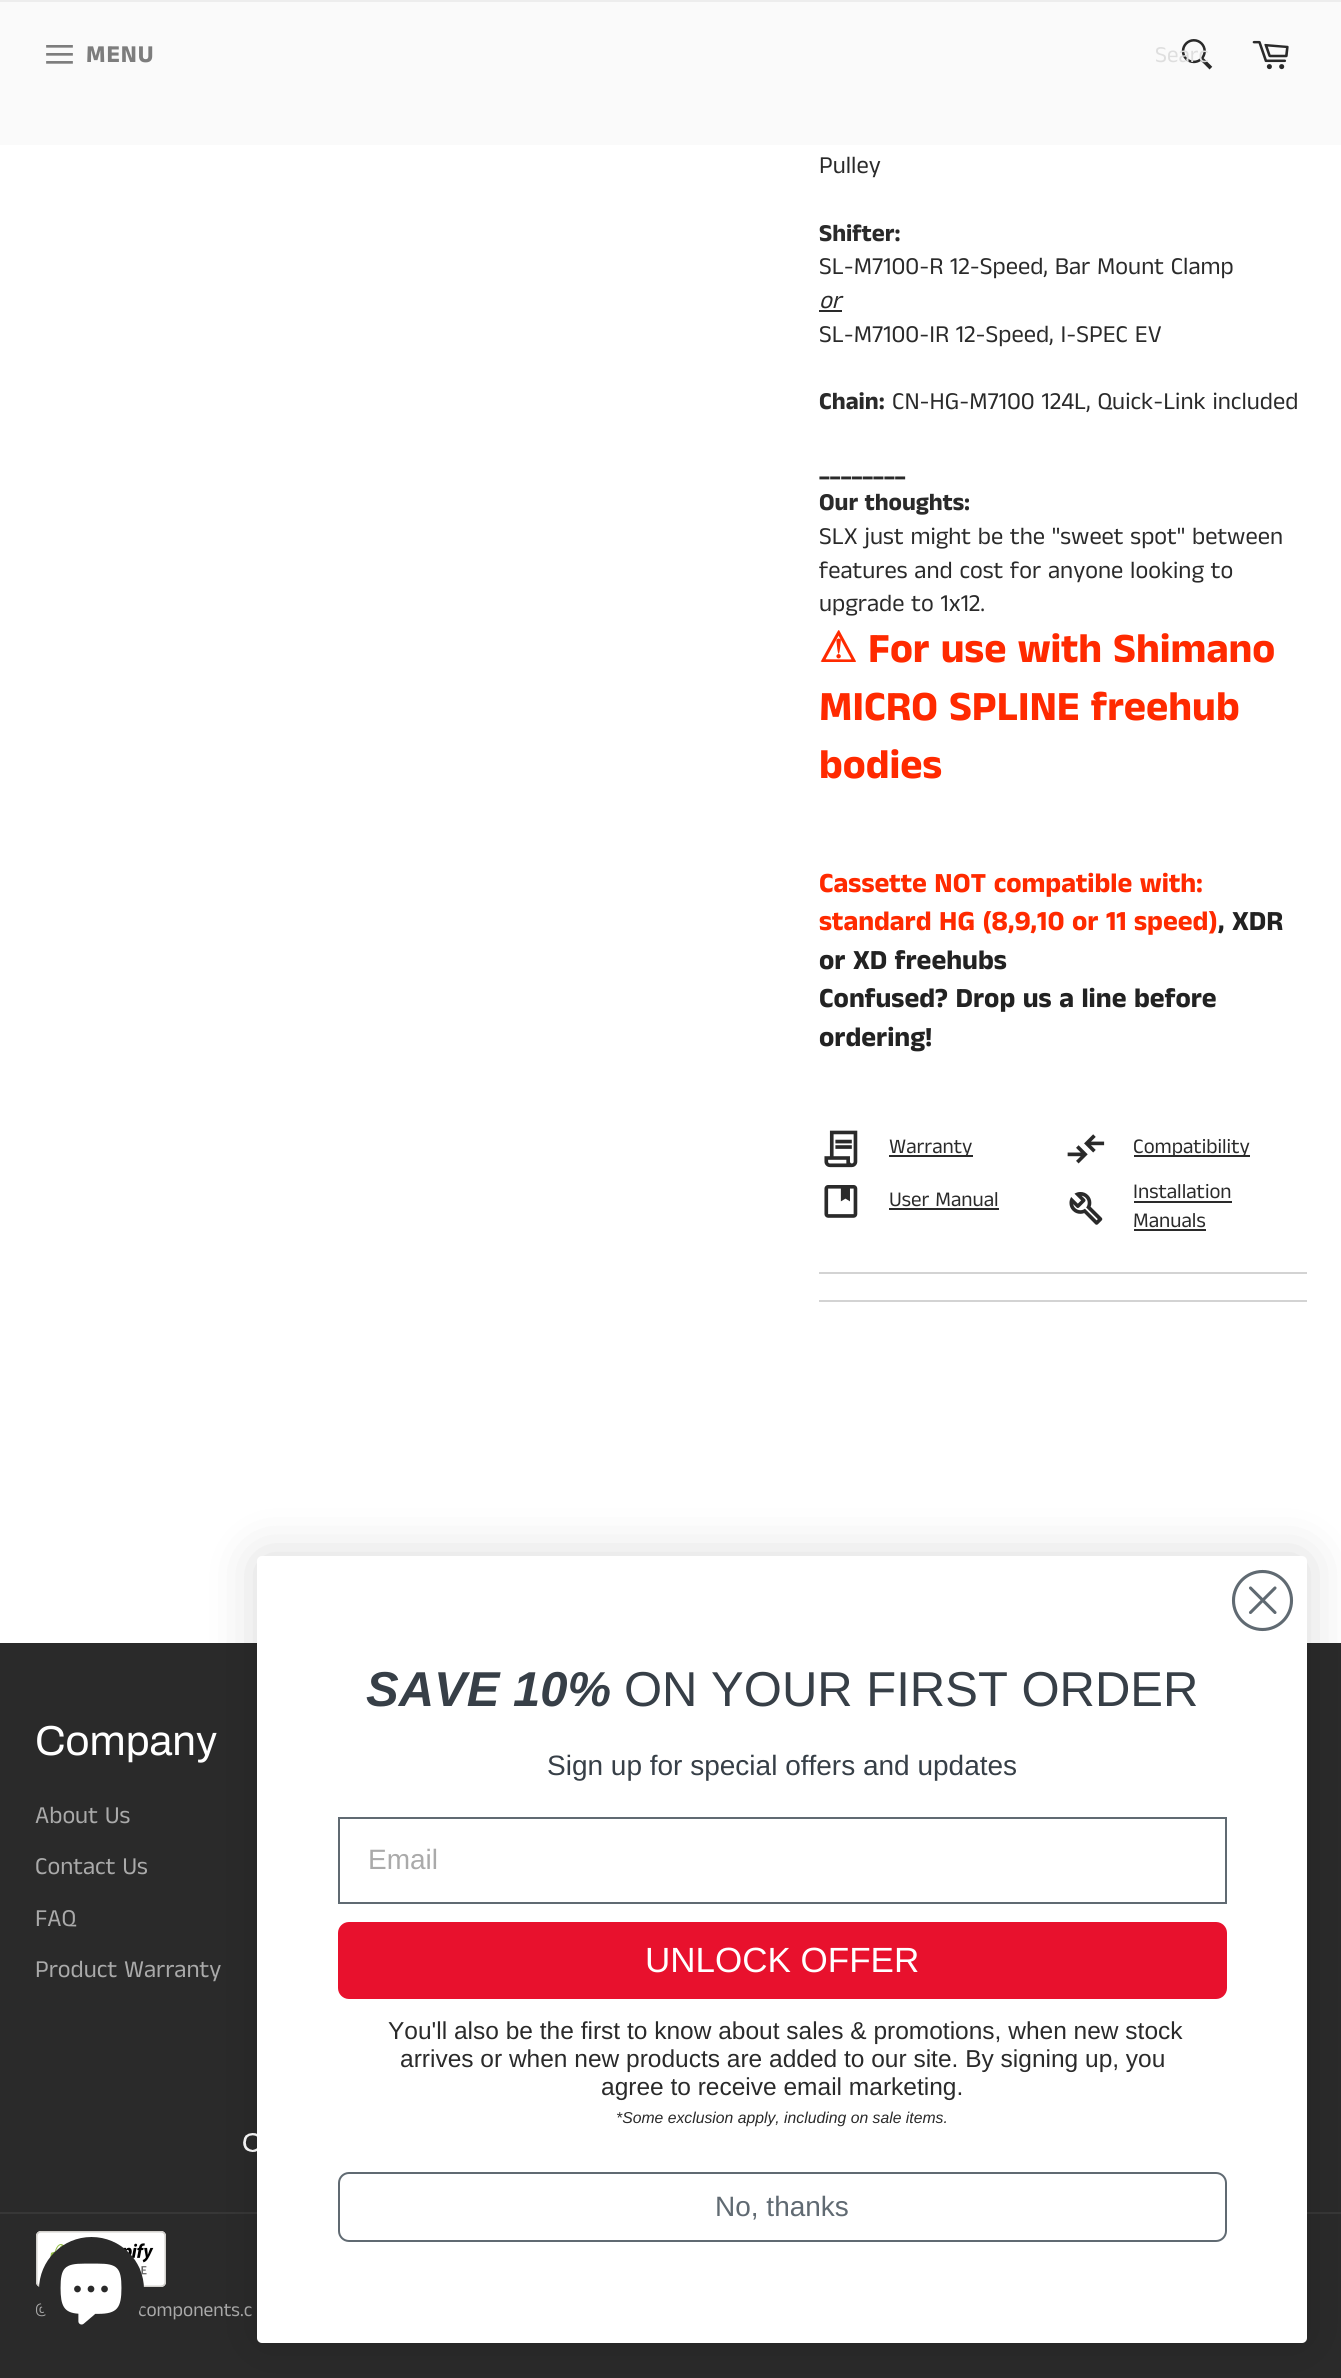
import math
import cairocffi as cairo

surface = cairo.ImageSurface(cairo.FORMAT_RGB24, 1341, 2378)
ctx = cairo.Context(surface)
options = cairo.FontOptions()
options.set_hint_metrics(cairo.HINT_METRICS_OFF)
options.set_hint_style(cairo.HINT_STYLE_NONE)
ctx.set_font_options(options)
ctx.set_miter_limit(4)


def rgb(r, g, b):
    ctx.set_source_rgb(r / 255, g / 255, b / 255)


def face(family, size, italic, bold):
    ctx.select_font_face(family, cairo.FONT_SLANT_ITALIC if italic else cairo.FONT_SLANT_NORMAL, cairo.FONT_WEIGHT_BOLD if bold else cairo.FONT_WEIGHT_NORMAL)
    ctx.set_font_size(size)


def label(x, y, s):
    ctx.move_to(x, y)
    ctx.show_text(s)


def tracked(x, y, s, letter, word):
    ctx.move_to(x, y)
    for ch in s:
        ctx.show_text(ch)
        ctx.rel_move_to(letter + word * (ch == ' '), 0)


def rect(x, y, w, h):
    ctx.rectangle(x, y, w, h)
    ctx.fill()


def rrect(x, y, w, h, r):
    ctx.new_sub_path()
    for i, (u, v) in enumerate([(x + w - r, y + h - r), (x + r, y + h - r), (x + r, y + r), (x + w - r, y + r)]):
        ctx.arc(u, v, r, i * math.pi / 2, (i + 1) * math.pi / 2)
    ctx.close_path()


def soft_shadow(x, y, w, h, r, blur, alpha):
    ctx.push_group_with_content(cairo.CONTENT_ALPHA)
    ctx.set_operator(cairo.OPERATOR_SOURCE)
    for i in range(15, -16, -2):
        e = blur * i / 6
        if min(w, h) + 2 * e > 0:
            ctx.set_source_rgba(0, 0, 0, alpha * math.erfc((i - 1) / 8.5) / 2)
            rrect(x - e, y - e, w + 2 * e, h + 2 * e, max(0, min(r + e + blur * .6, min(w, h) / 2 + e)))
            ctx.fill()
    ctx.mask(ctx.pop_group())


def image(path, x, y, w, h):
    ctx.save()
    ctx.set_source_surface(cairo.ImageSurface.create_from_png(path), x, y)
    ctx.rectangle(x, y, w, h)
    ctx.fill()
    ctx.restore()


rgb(255, 255, 255)
ctx.paint()
rgb(250, 250, 250)
rect(0, 2, 1341, 143)
rgb(237, 237, 237)
rect(0, 0, 1341, 2)
image('image0.png', 46, 45, 27, 19)
face('Anek Tamil', 24.5, 0, 1)
rgb(125, 125, 125)
tracked(86, 62, 'MENU', 1, 0)
image('image1.png', 1181, 39, 32, 31)
face('Anek Tamil', 23, 0, 0)
rgb(222, 222, 222)
label(1155, 62, 'Searc')
image('image2.png', 1252, 40, 37, 30)
face('Anek Tamil', 24.5, 0, 0)
rgb(42, 42, 42)
label(819, 173, 'Pulley')
face('Anek Tamil', 24.5, 0, 1)
label(819, 241, 'Shifter:')
face('Anek Tamil', 24.5, 0, 0)
label(819, 274, 'SL-M7100-R 12-Speed, Bar Mount Clamp')
face('Anek Tamil', 24.5, 1, 0)
label(819, 308, 'or')
rect(819, 310, 23, 2)
face('Anek Tamil', 24.5, 0, 0)
label(819, 342, 'SL-M7100-IR 12-Speed, I-SPEC EV')
face('Anek Tamil', 24.5, 0, 1)
label(819, 409, 'Chain:')
face('Anek Tamil', 24.5, 0, 0)
label(892, 409, 'CN-HG-M7100 124L, Quick-Link included')
face('Anek Tamil', 24.5, 0, 1)
label(819, 476, '________')
label(819, 510, 'Our thoughts:')
face('Anek Tamil', 24.5, 0, 0)
label(819, 544, 'SLX just might be the "sweet spot" between')
label(819, 578, 'features and cost for anyone looking to')
label(819, 611, 'upgrade to 1x12.')
face('DejaVu Sans', 42, 0, 1)
rgb(255, 42, 0)
label(819, 662, '⚠')
face('Anek Tamil', 42, 0, 1)
label(868, 662, 'For use with Shimano')
label(819, 720, 'MICRO SPLINE freehub')
label(819, 778, 'bodies')
face('Anek Tamil', 28, 0, 1)
label(819, 892, 'Cassette NOT compatible with:')
label(819, 930, 'standard HG (8,9,10 or 11 speed)')
rgb(34, 34, 34)
label(1218, 930, ', XDR')
label(819, 969, 'or XD freehubs')
label(819, 1007, 'Confused? Drop us a line before')
label(819, 1046, 'ordering!')
image('image3.png', 824, 1130, 34, 38)
rgb(42, 42, 42)
rect(889, 1155, 84, 2)
face('Anek Tamil', 21, 0, 0)
label(889, 1153, 'Warranty')
image('image4.png', 824, 1185, 34, 33)
label(889, 1206, 'User Manual')
rect(889, 1208, 110, 2)
image('image5.png', 1067, 1134, 38, 30)
rect(1134, 1155, 116, 2)
label(1133, 1153, 'Compatibility')
image('image6.png', 1069, 1192, 34, 33)
label(1133, 1198, 'Installation')
rect(1134, 1201, 98, 2)
label(1133, 1227, 'Manuals')
rect(1134, 1229, 72, 2)
rgb(211, 211, 211)
rect(819, 1272, 488, 2)
rect(819, 1300, 488, 2)
rgb(42, 42, 42)
rect(0, 1643, 1341, 735)
face('Archivo', 42, 0, 0)
rgb(255, 255, 255)
label(35, 1755, 'Company')
face('Anek Tamil', 24.5, 0, 0)
rgb(170, 170, 170)
label(35, 1823, 'About Us')
label(35, 1874, 'Contact Us')
label(35, 1926, 'FAQ')
label(35, 1977, 'Product Warranty')
image('image7.png', 243, 2133, 14, 19)
rgb(55, 55, 55)
rect(0, 2212, 1341, 2)
image('image8.png', 36, 2231, 130, 56)
face('Anek Tamil', 19.5, 0, 0)
rgb(170, 170, 170)
label(35, 2316, '©')
label(138, 2316, 'components.c')
rgb(0, 0, 0)
soft_shadow(257, 1556, 1050, 787, 5, 26, 0.15)
rgb(255, 255, 255)
rrect(257, 1556, 1050, 787, 5)
ctx.fill()
ctx.arc(1262.5, 1600.5, 29, 0, 2 * math.pi)
rgb(96, 106, 114)
ctx.set_line_width(3.1)
ctx.stroke()
ctx.new_path()
ctx.move_to(1250.5, 1588)
ctx.line_to(1275, 1612.5)
ctx.move_to(1250.5, 1612.5)
ctx.line_to(1275, 1588)
ctx.close_path()
ctx.set_line_cap(cairo.LINE_CAP_ROUND)
ctx.set_line_join(cairo.LINE_JOIN_ROUND)
ctx.stroke()
face('Liberation Sans', 49, 1, 1)
rgb(55, 63, 71)
label(366, 1706, 'SAVE 10%')
face('Liberation Sans', 49, 0, 0)
label(624, 1706, 'ON YOUR FIRST ORDER')
face('Liberation Sans', 28, 0, 0)
label(547, 1775, 'Sign up for special offers and updates')
ctx.rectangle(339, 1818, 887, 85)
rgb(96, 106, 114)
ctx.set_line_width(2)
ctx.set_line_cap(cairo.LINE_CAP_BUTT)
ctx.set_line_join(cairo.LINE_JOIN_MITER)
ctx.stroke()
rgb(170, 170, 170)
label(368, 1869, 'Email')
rgb(232, 17, 45)
rrect(338, 1922, 889, 77, 11)
ctx.fill()
face('Liberation Sans', 35, 0, 0)
rgb(255, 255, 255)
label(645, 1972, 'UNLOCK OFFER')
face('Liberation Sans', 24.5, 0, 0)
rgb(42, 42, 42)
label(388, 2039, 'You\'ll also be the first to know about sales & promotions, when new stock')
label(400, 2067, 'arrives or when new products are added to our site. By signing up, you')
label(601, 2095, 'agree to receive email marketing.')
face('Liberation Sans', 15.75, 1, 0)
label(616, 2123, '*Some exclusion apply, including on sale items.')
rrect(339, 2173, 887, 68, 10)
rgb(96, 106, 114)
ctx.stroke()
face('Liberation Sans', 28, 0, 0)
label(715, 2216, 'No, thanks')
rgb(42, 42, 42)
ctx.new_path()
ctx.arc(91.5, 2289.5, 52.5, 0, 2 * math.pi)
ctx.fill()
image('image9.png', 60, 2263, 62, 62)
surface.write_to_png('render.png')
